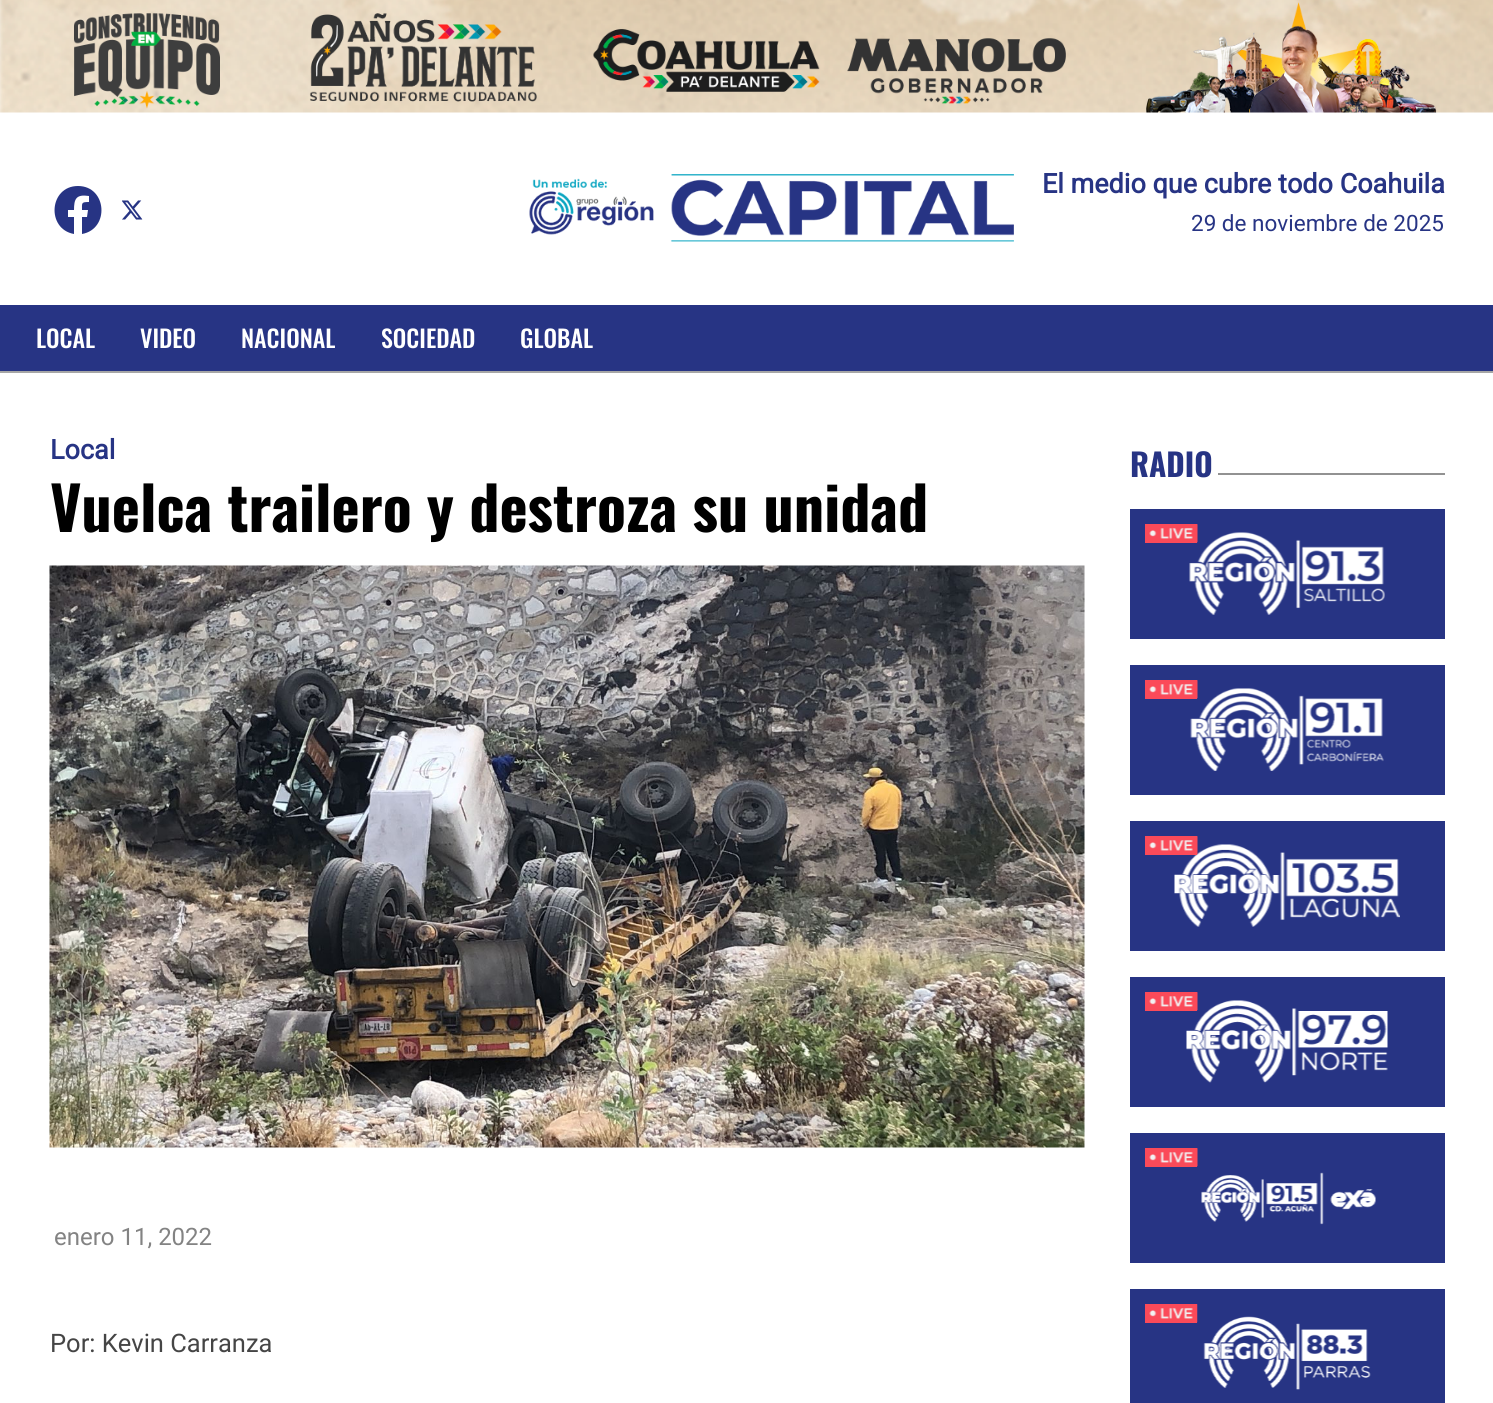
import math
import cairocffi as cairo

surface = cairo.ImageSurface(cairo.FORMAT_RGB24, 1493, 1403)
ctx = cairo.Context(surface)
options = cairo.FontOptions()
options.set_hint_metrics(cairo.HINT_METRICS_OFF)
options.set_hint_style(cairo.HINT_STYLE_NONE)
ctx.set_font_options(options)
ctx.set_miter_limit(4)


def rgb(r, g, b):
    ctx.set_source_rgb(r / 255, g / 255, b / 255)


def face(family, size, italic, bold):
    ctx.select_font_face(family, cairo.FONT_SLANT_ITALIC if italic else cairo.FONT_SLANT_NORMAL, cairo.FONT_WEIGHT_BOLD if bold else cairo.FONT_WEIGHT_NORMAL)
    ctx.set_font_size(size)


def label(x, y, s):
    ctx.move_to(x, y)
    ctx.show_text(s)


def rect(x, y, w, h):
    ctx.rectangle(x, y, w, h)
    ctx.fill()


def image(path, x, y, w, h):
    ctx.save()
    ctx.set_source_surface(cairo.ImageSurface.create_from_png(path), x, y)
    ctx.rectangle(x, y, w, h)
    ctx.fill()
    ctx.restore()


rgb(255, 255, 255)
ctx.paint()
image('image0.png', 0, 0, 1493, 113)
rgb(39, 52, 132)
ctx.new_path()
ctx.move_to(78, 186)
ctx.curve_to(49, 186, 46, 229, 74, 234)
ctx.line_to(74, 217)
ctx.line_to(68, 217)
ctx.line_to(68, 210)
ctx.line_to(74, 210)
ctx.curve_to(74, 199, 76, 194, 89, 196)
ctx.line_to(89, 202)
ctx.curve_to(81, 202, 82, 203, 82, 210)
ctx.line_to(88, 210)
ctx.line_to(87, 217)
ctx.line_to(82, 217)
ctx.line_to(82, 234)
ctx.curve_to(110, 229, 107, 186, 78, 186)
ctx.fill()
image('image1.png', 122, 200, 21, 20)
image('image2.png', 529, 174, 485, 68)
face('Roboto', 27, 0, 1)
label(1042, 193, 'El medio que cubre todo Coahuila')
face('Roboto', 22.5, 0, 0)
label(1191, 231, '29 de noviembre de 2025')
rect(0, 305, 1493, 66)
rgb(166, 166, 166)
rect(0, 371, 1493, 2)
face('Oswald Medium', 24, 0, 0)
rgb(255, 255, 255)
label(36, 348, 'LOCAL')
label(140, 348, 'VIDEO')
label(241, 348, 'NACIONAL')
label(381, 348, 'SOCIEDAD')
label(520, 348, 'GLOBAL')
face('Roboto', 27, 0, 1)
rgb(39, 52, 132)
label(50, 459, 'Local')
face('Oswald', 60, 0, 1)
rgb(0, 0, 0)
label(50, 532, 'Vuelca trailero y destroza su unidad')
image('image3.png', 49, 565, 1036, 583)
face('Roboto', 24, 0, 0)
rgb(131, 131, 131)
label(54, 1245, 'enero 11, 2022')
face('Roboto', 25.5, 0, 0)
rgb(69, 69, 69)
label(50, 1352, 'Por: Kevin Carranza')
face('Oswald', 31.5, 0, 1)
rgb(39, 52, 132)
label(1130, 477, 'RADIO')
rgb(146, 146, 146)
rect(1218, 473, 227, 2)
rgb(39, 52, 132)
rect(1130, 509, 315, 130)
image('image5.png', 1189, 532, 196, 83)
rgb(251, 74, 89)
rect(1145, 524, 52, 19)
image('image4.png', 1149, 524, 49, 19)
rgb(39, 52, 132)
rect(1130, 665, 315, 130)
image('image6.png', 1190, 688, 194, 83)
rgb(251, 74, 89)
rect(1145, 680, 52, 19)
image('image4.png', 1149, 680, 49, 19)
rgb(39, 52, 132)
rect(1130, 821, 315, 130)
image('image8.png', 1174, 844, 226, 83)
rgb(251, 74, 89)
rect(1145, 836, 52, 19)
image('image7.png', 1149, 836, 49, 19)
rgb(39, 52, 132)
rect(1130, 977, 315, 130)
image('image9.png', 1186, 1000, 202, 83)
rgb(251, 74, 89)
rect(1145, 992, 52, 19)
image('image4.png', 1149, 992, 49, 19)
rgb(39, 52, 132)
rect(1130, 1133, 315, 130)
rgb(251, 74, 89)
rect(1145, 1148, 52, 19)
image('image4.png', 1149, 1148, 49, 19)
image('image10.png', 1201, 1172, 175, 53)
rgb(39, 52, 132)
rect(1130, 1289, 315, 114)
rgb(251, 74, 89)
rect(1145, 1304, 52, 19)
image('image11.png', 1149, 1304, 49, 19)
image('image12.png', 1203, 1316, 168, 74)
surface.write_to_png('render.png')
